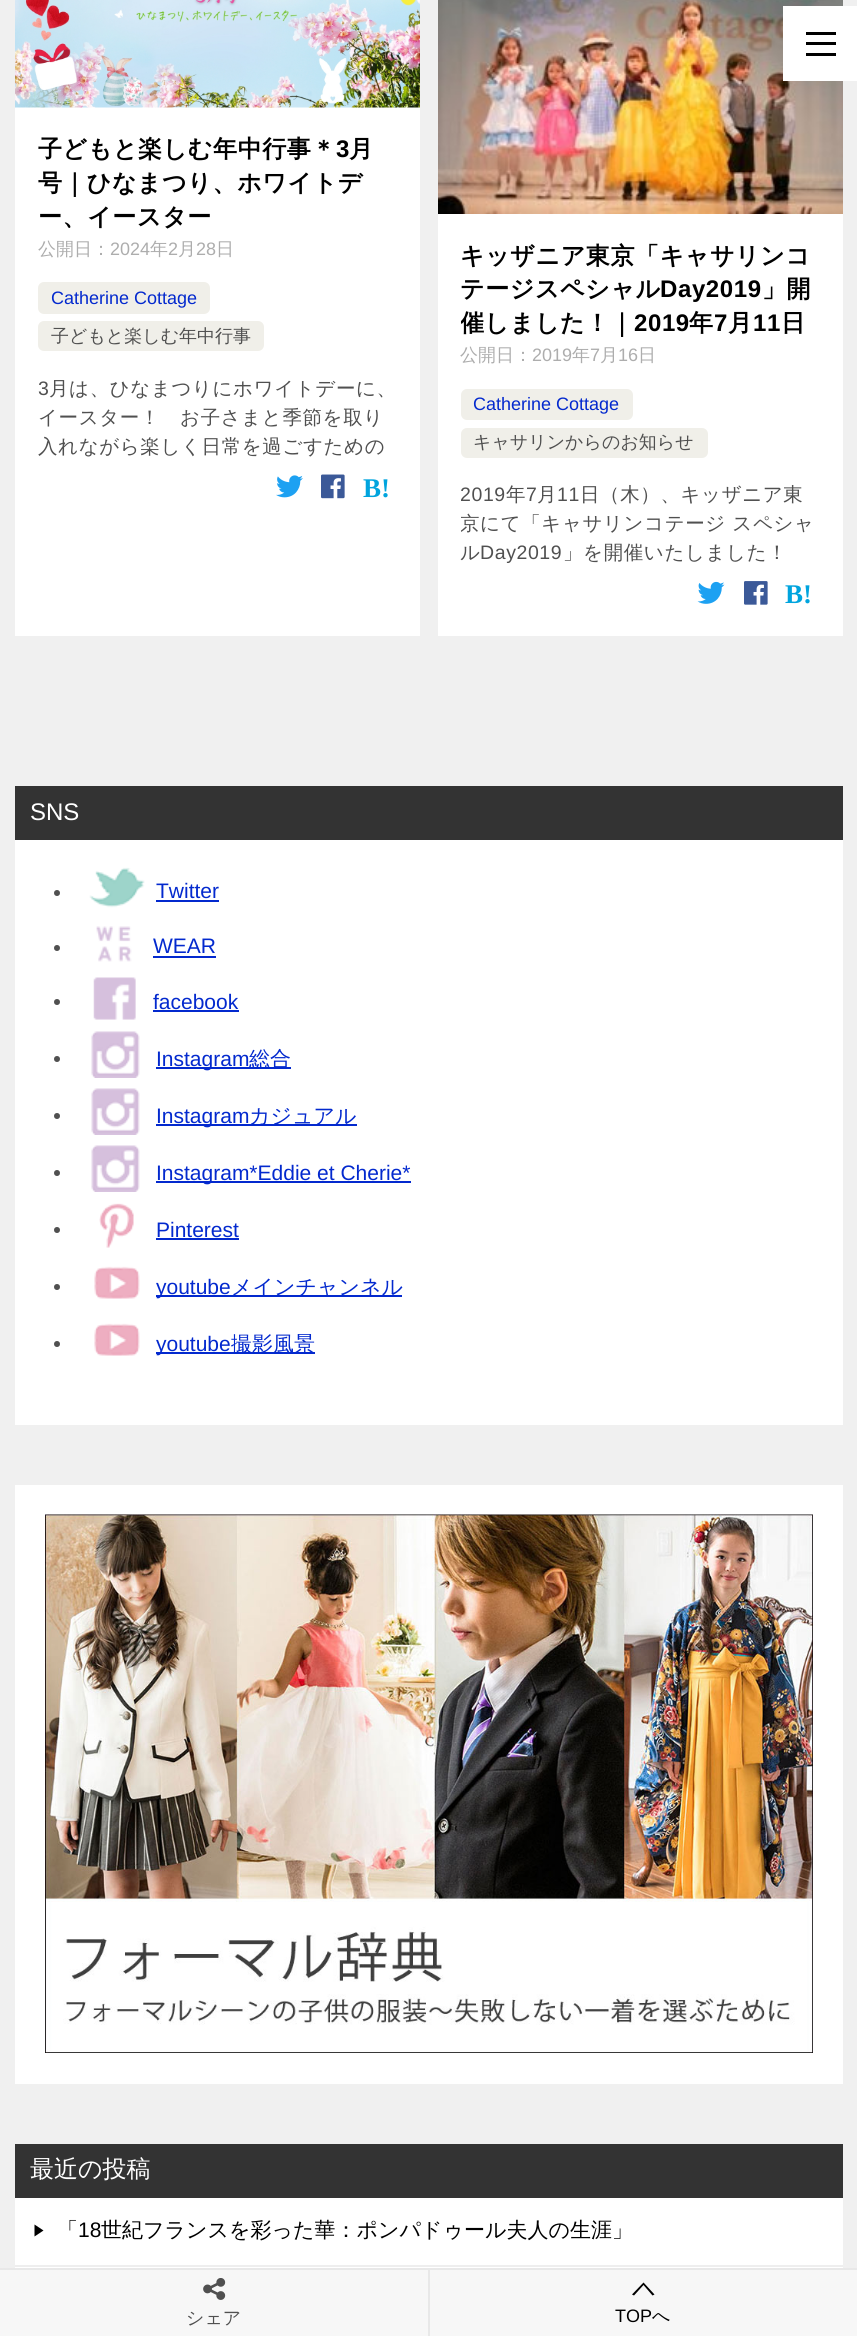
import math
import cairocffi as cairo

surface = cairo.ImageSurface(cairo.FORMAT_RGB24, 857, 2336)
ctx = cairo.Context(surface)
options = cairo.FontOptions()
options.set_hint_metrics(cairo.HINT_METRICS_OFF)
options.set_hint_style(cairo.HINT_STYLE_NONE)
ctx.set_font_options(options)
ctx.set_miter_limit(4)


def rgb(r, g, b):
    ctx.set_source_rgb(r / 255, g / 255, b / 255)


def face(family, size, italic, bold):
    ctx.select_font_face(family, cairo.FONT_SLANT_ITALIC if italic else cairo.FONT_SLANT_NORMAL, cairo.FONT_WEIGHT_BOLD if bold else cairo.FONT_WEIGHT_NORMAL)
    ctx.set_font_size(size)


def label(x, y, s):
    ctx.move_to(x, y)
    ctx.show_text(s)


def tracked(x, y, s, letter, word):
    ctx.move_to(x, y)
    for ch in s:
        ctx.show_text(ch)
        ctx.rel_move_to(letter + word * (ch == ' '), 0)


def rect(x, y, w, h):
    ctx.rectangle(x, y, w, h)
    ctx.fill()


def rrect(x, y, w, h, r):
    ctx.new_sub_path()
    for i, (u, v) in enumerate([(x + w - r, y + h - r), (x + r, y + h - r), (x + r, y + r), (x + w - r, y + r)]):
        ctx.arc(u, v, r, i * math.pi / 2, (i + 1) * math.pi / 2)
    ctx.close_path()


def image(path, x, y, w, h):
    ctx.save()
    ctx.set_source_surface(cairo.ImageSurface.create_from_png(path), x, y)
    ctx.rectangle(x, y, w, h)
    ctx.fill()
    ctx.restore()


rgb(240, 240, 240)
ctx.paint()
image('image3.png', 438, 0, 405, 214)
rgb(255, 255, 255)
rect(783, 6, 74, 75)
rgb(0, 0, 0)
rect(806, 42, 30, 3)
rect(806, 32, 30, 3)
rect(806, 53, 30, 3)
rgb(255, 255, 255)
rect(15, 107, 405, 529)
image('image0.png', 15, 0, 405, 108)
face('WenQuanYi Zen Hei', 24, 0, 1)
rgb(0, 0, 0)
tracked(38, 157, '子どもと楽しむ年中行事＊', 0.6, 0)
face('Liberation Sans', 24, 0, 1)
tracked(336, 157, '3', 0.6, 0)
face('WenQuanYi Zen Hei', 24, 0, 1)
tracked(349, 157, '月', 0.6, 0)
tracked(38, 191, '号｜ひなまつり、ホワイトデ', 0.6, 0)
tracked(38, 225, 'ー、イースター', 0.6, 0)
face('WenQuanYi Zen Hei Medium', 18, 0, 0)
rgb(173, 173, 173)
label(38, 255, '公開日：')
face('Liberation Sans', 18, 0, 0)
label(110, 255, '2024')
face('WenQuanYi Zen Hei Medium', 18, 0, 0)
label(150, 255, '年')
face('Liberation Sans', 18, 0, 0)
label(168, 255, '2')
face('WenQuanYi Zen Hei Medium', 18, 0, 0)
label(178, 255, '月')
face('Liberation Sans', 18, 0, 0)
label(196, 255, '28')
face('WenQuanYi Zen Hei Medium', 18, 0, 0)
label(216, 255, '日')
rgb(240, 239, 233)
rrect(38, 282, 172, 32, 6)
ctx.fill()
face('Liberation Sans', 18, 0, 0)
rgb(3, 41, 206)
label(51, 304, 'Catherine Cottage')
rgb(240, 239, 233)
rrect(38, 321, 226, 30, 6)
ctx.fill()
face('WenQuanYi Zen Hei Medium', 18, 0, 0)
rgb(80, 80, 80)
label(51, 342, '子どもと楽しむ年中行事')
face('Liberation Sans', 19.5, 0, 0)
tracked(38, 395, '3', 0.6, 0)
face('WenQuanYi Zen Hei Medium', 19.5, 0, 0)
tracked(49, 395, '月は、ひなまつりにホワイトデーに、', 0.6, 0)
tracked(38, 424, 'イースター！　お子さまと季節を取り', 0.6, 0)
tracked(38, 453, '入れながら楽しく日常を過ごすための', 0.6, 0)
image('image1.png', 276, 475, 27, 23)
image('image2.png', 321, 474, 24, 25)
face('Liberation Serif', 27, 0, 1)
rgb(0, 164, 222)
label(363, 497, 'B!')
rgb(255, 255, 255)
rect(438, 214, 405, 422)
face('WenQuanYi Zen Hei', 24, 0, 1)
rgb(0, 0, 0)
tracked(460, 264, 'キッザニア東京「キャサリンコ', 0.6, 0)
tracked(460, 297, 'テージスペシャル', 0.6, 0)
face('Liberation Sans', 24, 0, 1)
tracked(660, 297, 'Day2019', 0.6, 0)
face('WenQuanYi Zen Hei', 24, 0, 1)
tracked(762, 297, '」開', 0.6, 0)
ctx.save()
ctx.rectangle(461, 240, 360, 98)
ctx.clip()
tracked(460, 331, '催しました！｜', 0.6, 0)
ctx.restore()
face('Liberation Sans', 24, 0, 1)
tracked(634, 331, '2019', 0.6, 0)
face('WenQuanYi Zen Hei', 24, 0, 1)
tracked(689, 331, '年', 0.6, 0)
face('Liberation Sans', 24, 0, 1)
tracked(714, 331, '7', 0.6, 0)
face('WenQuanYi Zen Hei', 24, 0, 1)
tracked(728, 331, '月', 0.6, 0)
face('Liberation Sans', 24, 0, 1)
tracked(753, 331, '11', 0.6, 0)
face('WenQuanYi Zen Hei', 24, 0, 1)
tracked(781, 331, '日', 0.6, 0)
face('WenQuanYi Zen Hei Medium', 18, 0, 0)
rgb(173, 173, 173)
label(460, 361, '公開日：')
face('Liberation Sans', 18, 0, 0)
label(532, 361, '2019')
face('WenQuanYi Zen Hei Medium', 18, 0, 0)
label(572, 361, '年')
face('Liberation Sans', 18, 0, 0)
label(590, 361, '7')
face('WenQuanYi Zen Hei Medium', 18, 0, 0)
label(600, 361, '月')
face('Liberation Sans', 18, 0, 0)
label(618, 361, '16')
face('WenQuanYi Zen Hei Medium', 18, 0, 0)
label(638, 361, '日')
rgb(240, 239, 233)
rrect(461, 389, 172, 31, 6)
ctx.fill()
face('Liberation Sans', 18, 0, 0)
rgb(3, 41, 206)
label(473, 410, 'Catherine Cottage')
rgb(240, 239, 233)
rrect(461, 428, 247, 30, 6)
ctx.fill()
face('WenQuanYi Zen Hei Medium', 18, 0, 0)
rgb(80, 80, 80)
label(473, 448, 'キャサリンからのお知らせ')
ctx.save()
ctx.rectangle(461, 480, 360, 87)
ctx.clip()
face('Liberation Sans', 19.5, 0, 0)
tracked(460, 501, '2019', 0.6, 0)
ctx.restore()
face('WenQuanYi Zen Hei Medium', 19.5, 0, 0)
tracked(506, 501, '年', 0.6, 0)
face('Liberation Sans', 19.5, 0, 0)
tracked(526, 501, '7', 0.6, 0)
face('WenQuanYi Zen Hei Medium', 19.5, 0, 0)
tracked(537, 501, '月', 0.6, 0)
face('Liberation Sans', 19.5, 0, 0)
tracked(557, 501, '11', 0.6, 0)
face('WenQuanYi Zen Hei Medium', 19.5, 0, 0)
tracked(580, 501, '日（木）、キッザニア東', 0.6, 0)
ctx.save()
ctx.rectangle(461, 480, 360, 87)
ctx.clip()
tracked(460, 530, '京にて「キャサリンコテージ スペシャ', 0.6, 0)
ctx.restore()
tracked(460, 559, 'ル', 0.6, 0)
face('Liberation Sans', 19.5, 0, 0)
tracked(480, 559, 'Day2019', 0.6, 0)
face('WenQuanYi Zen Hei Medium', 19.5, 0, 0)
tracked(563, 559, '」を開催いたしました！', 0.6, 0)
image('image4.png', 697, 581, 28, 23)
image('image5.png', 744, 581, 24, 24)
face('Liberation Serif', 27, 0, 1)
rgb(0, 164, 222)
label(785, 603, 'B!')
rgb(255, 255, 255)
rect(15, 840, 828, 585)
rgb(51, 51, 51)
rect(15, 786, 828, 54)
face('Liberation Sans', 24, 0, 0)
rgb(255, 255, 255)
label(30, 820, 'SNS')
rgb(80, 80, 80)
ctx.new_path()
ctx.arc(57, 893, 3, 0, 2 * math.pi)
ctx.fill()
image('image6.png', 89, 867, 56, 41)
face('Liberation Sans', 21, 0, 0)
rgb(3, 41, 206)
label(156, 898, 'Twitter')
rect(156, 900, 63, 2)
rgb(80, 80, 80)
ctx.new_path()
ctx.arc(57, 948, 3, 0, 2 * math.pi)
ctx.fill()
image('image7.png', 96, 926, 36, 36)
rgb(3, 41, 206)
label(153, 953, 'WEAR')
rect(153, 956, 63, 2)
rgb(80, 80, 80)
ctx.new_path()
ctx.arc(57, 1002, 3, 0, 2 * math.pi)
ctx.fill()
image('image8.png', 93, 977, 43, 43)
rgb(3, 41, 206)
label(153, 1009, 'facebook')
rect(153, 1010, 86, 2)
rgb(80, 80, 80)
ctx.new_path()
ctx.arc(57, 1059, 3, 0, 2 * math.pi)
ctx.fill()
image('image9.png', 91, 1031, 49, 47)
rgb(3, 41, 206)
rect(156, 1067, 135, 2)
label(156, 1066, 'Instagram')
face('WenQuanYi Zen Hei Medium', 21, 0, 0)
label(249, 1066, '総合')
rgb(80, 80, 80)
ctx.new_path()
ctx.arc(57, 1116, 3, 0, 2 * math.pi)
ctx.fill()
image('image9.png', 91, 1088, 49, 47)
rgb(3, 41, 206)
rect(156, 1124, 201, 2)
face('Liberation Sans', 21, 0, 0)
label(156, 1123, 'Instagram')
face('WenQuanYi Zen Hei Medium', 21, 0, 0)
label(249, 1123, 'カジュアル')
rgb(80, 80, 80)
ctx.new_path()
ctx.arc(57, 1173, 3, 0, 2 * math.pi)
ctx.fill()
image('image9.png', 91, 1145, 49, 47)
rgb(3, 41, 206)
rect(156, 1181, 255, 2)
face('Liberation Sans', 21, 0, 0)
label(156, 1180, 'Instagram*Eddie et Cherie*')
rgb(80, 80, 80)
ctx.new_path()
ctx.arc(57, 1230, 3, 0, 2 * math.pi)
ctx.fill()
image('image10.png', 99, 1203, 35, 45)
rgb(3, 41, 206)
label(156, 1237, 'Pinterest')
rect(156, 1238, 83, 2)
rgb(80, 80, 80)
ctx.new_path()
ctx.arc(57, 1287, 3, 0, 2 * math.pi)
ctx.fill()
image('image11.png', 94, 1266, 46, 33)
rgb(3, 41, 206)
rect(156, 1295, 246, 2)
label(156, 1294, 'youtube')
face('WenQuanYi Zen Hei Medium', 21, 0, 0)
label(231, 1294, 'メインチャンネル')
rgb(80, 80, 80)
ctx.new_path()
ctx.arc(57, 1344, 3, 0, 2 * math.pi)
ctx.fill()
image('image11.png', 94, 1323, 46, 33)
rgb(3, 41, 206)
rect(156, 1352, 159, 2)
face('Liberation Sans', 21, 0, 0)
label(156, 1351, 'youtube')
face('WenQuanYi Zen Hei Medium', 21, 0, 0)
label(231, 1351, '撮影風景')
rgb(255, 255, 255)
rect(15, 1485, 828, 599)
image('image12.png', 45, 1514, 768, 539)
rect(15, 2198, 828, 70)
rgb(51, 51, 51)
rect(15, 2144, 828, 54)
face('WenQuanYi Zen Hei Medium', 24, 0, 0)
rgb(255, 255, 255)
label(30, 2177, '最近の投稿')
rgb(238, 238, 238)
rect(15, 2265, 828, 2)
rgb(0, 0, 0)
ctx.new_path()
ctx.move_to(34.5, 2236.5)
ctx.line_to(34.5, 2224.5)
ctx.line_to(43.5, 2230.5)
ctx.close_path()
ctx.fill()
face('WenQuanYi Zen Hei Medium', 21, 0, 0)
label(57, 2237, '「')
face('Liberation Sans', 21, 0, 0)
label(78, 2237, '18')
face('WenQuanYi Zen Hei Medium', 21, 0, 0)
label(101, 2237, '世紀フランスを彩った華：ポンパドゥール夫人の生涯」')
rgb(247, 247, 247)
rect(0, 2270, 857, 66)
rgb(232, 232, 232)
rect(0, 2268, 857, 2)
rect(428, 2270, 2, 66)
image('image13.png', 203, 2278, 23, 22)
face('WenQuanYi Zen Hei Medium', 18, 0, 0)
rgb(80, 80, 80)
label(186, 2324, 'シェア')
rgb(0, 0, 0)
ctx.new_path()
ctx.move_to(643.5, 2282.5)
ctx.line_to(654.5, 2294.5)
ctx.line_to(652.5, 2295.5)
ctx.line_to(643.5, 2285)
ctx.line_to(634, 2295.5)
ctx.line_to(632, 2294.5)
ctx.close_path()
ctx.fill()
face('Liberation Sans', 18, 0, 0)
label(615, 2322, 'TOP')
face('WenQuanYi Zen Hei Medium', 18, 0, 0)
label(652, 2322, 'へ')
surface.write_to_png('render.png')
